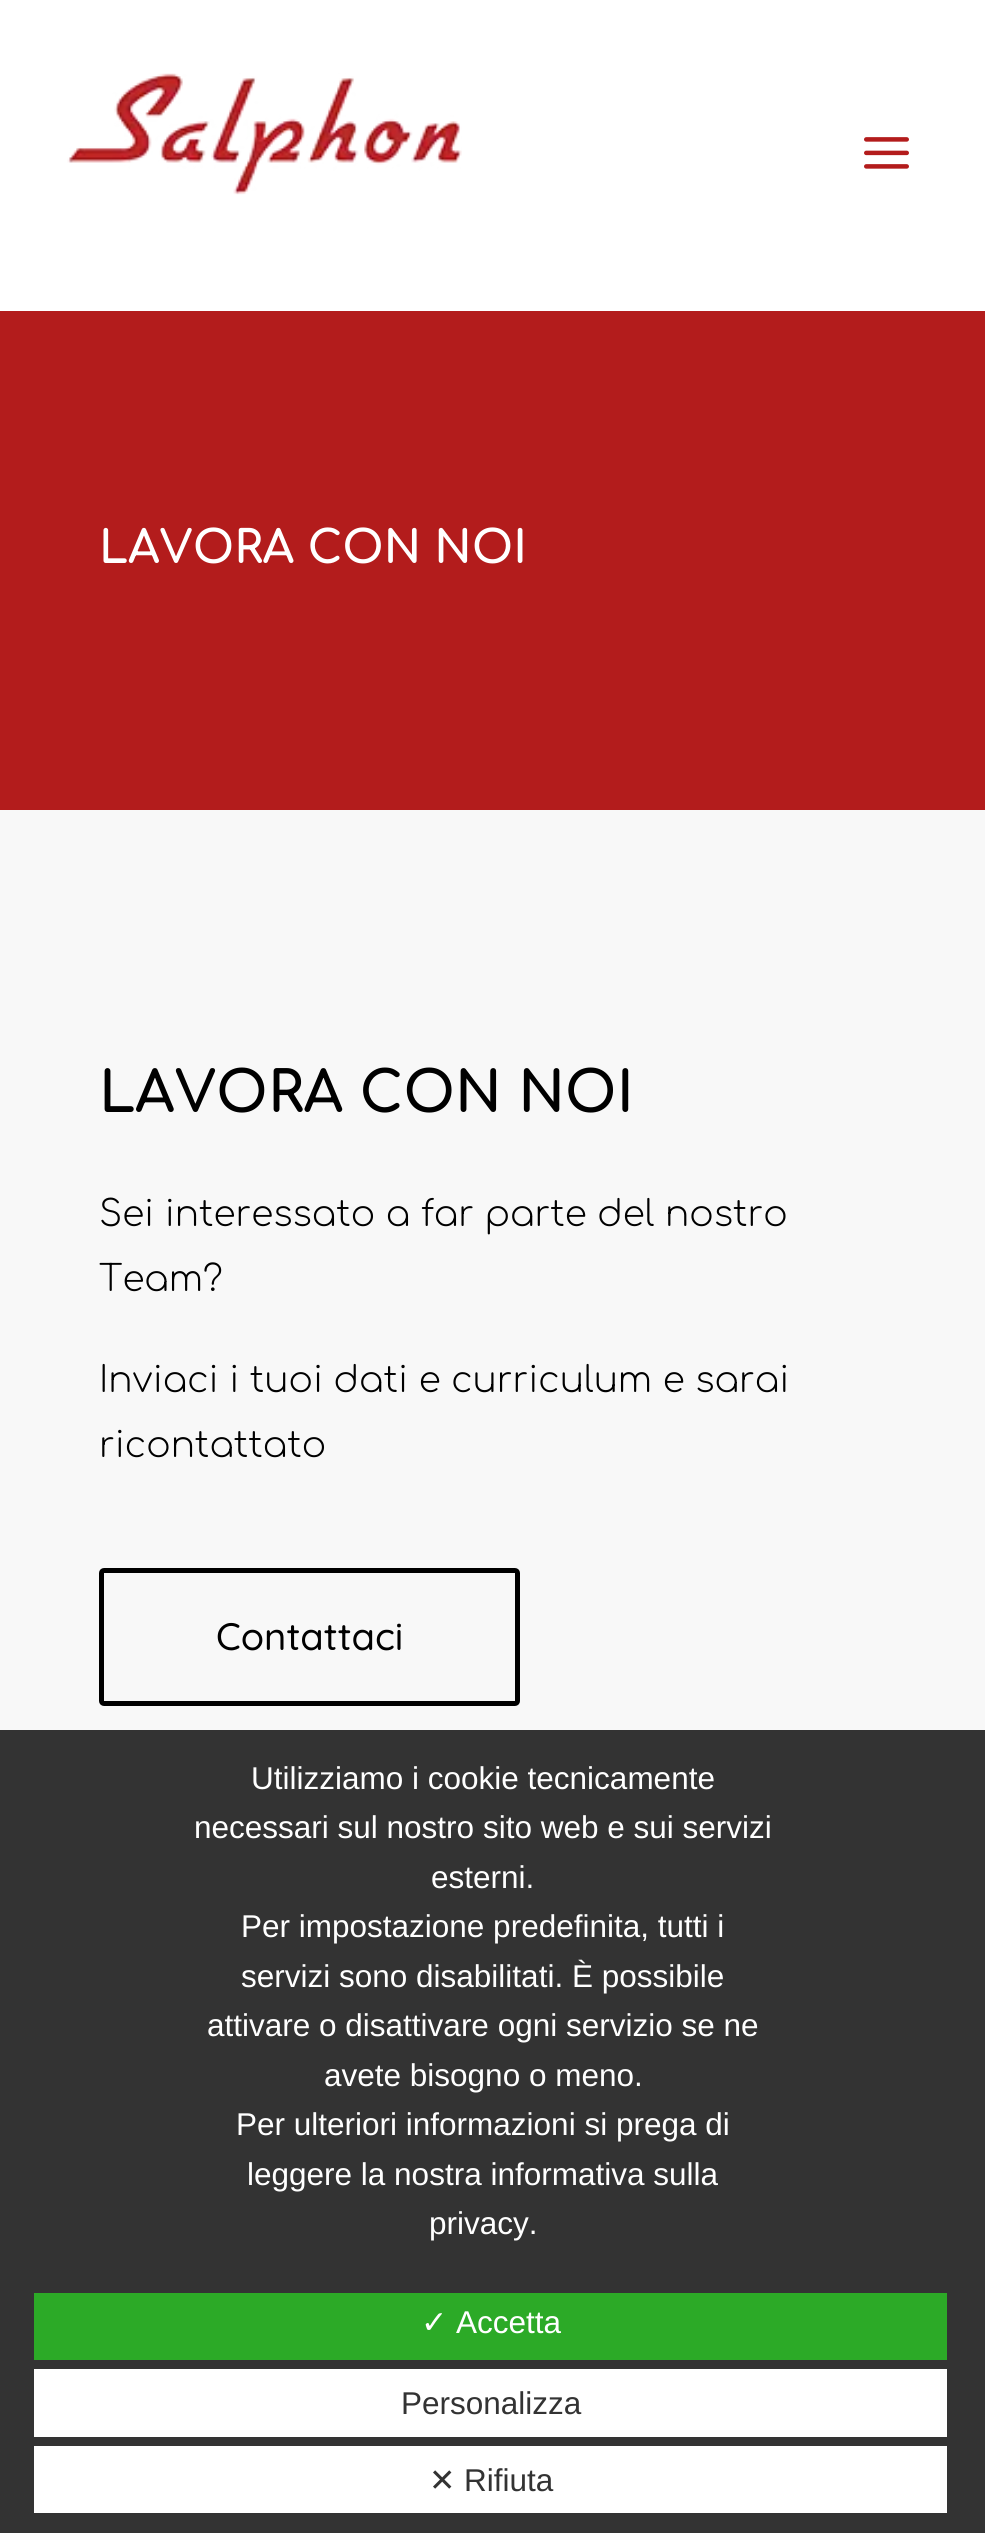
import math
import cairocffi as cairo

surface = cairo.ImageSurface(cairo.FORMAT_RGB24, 985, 2533)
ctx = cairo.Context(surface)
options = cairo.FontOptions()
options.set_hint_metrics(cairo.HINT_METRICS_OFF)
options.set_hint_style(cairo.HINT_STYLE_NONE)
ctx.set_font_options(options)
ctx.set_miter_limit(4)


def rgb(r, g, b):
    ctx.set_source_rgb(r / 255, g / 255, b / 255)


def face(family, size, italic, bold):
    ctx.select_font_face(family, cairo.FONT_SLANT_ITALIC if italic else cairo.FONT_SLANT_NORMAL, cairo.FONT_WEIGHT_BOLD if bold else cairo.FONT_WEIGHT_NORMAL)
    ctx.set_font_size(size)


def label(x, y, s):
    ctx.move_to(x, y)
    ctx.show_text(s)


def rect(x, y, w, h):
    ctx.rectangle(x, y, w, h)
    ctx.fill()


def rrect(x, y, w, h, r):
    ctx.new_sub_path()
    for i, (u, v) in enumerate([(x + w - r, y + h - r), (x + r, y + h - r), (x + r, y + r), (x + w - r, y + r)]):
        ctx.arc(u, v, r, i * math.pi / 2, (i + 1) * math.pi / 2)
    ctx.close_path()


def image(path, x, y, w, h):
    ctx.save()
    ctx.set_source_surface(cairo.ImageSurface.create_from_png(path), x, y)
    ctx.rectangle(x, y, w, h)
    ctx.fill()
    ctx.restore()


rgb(255, 255, 255)
ctx.paint()
image('image0.png', 67, 73, 395, 122)
image('image1.png', 864, 137, 45, 32)
rgb(179, 28, 28)
rect(0, 311, 985, 499)
face('Comfortaa', 45, 0, 1)
rgb(255, 255, 255)
label(99, 563, 'LAVORA CON NOI')
rgb(248, 248, 248)
rect(0, 810, 985, 920)
face('Comfortaa', 56.25, 0, 1)
rgb(0, 0, 0)
label(99, 1112, 'LAVORA CON NOI')
face('Comfortaa Light', 36, 0, 0)
label(99, 1226, 'Sei interessato a far parte del nostro')
label(99, 1291, 'Team?')
label(99, 1392, 'Inviaci i tuoi dati e curriculum e sarai')
label(99, 1457, 'ricontattato')
rrect(101.5, 1570.5, 416, 133, 2.5)
ctx.set_line_width(5)
ctx.stroke()
face('Quicksand Light', 38.25, 0, 0)
label(216, 1650, 'Contattaci')
rgb(51, 51, 51)
rect(0, 1730, 985, 803)
face('Liberation Sans', 31.5, 0, 0)
rgb(255, 255, 255)
label(251, 1789, 'Utilizziamo i cookie tecnicamente')
label(194, 1838, 'necessari sul nostro sito web e sui servizi')
label(431, 1888, 'esterni.')
label(241, 1937, 'Per impostazione predefinita, tutti i')
label(241, 1987, 'servizi sono disabilitati. È possibile')
label(207, 2036, 'attivare o disattivare ogni servizio se ne')
label(324, 2086, 'avete bisogno o meno.')
label(236, 2135, 'Per ulteriori informazioni si prega di')
label(247, 2185, 'leggere la nostra informativa sulla')
label(429, 2234, 'privacy.')
rgb(44, 170, 39)
rect(34, 2293, 913, 67)
face('DejaVu Sans', 31.5, 0, 0)
rgb(255, 255, 255)
label(421, 2333, '✓')
face('Liberation Sans', 31.5, 0, 0)
label(456, 2333, 'Accetta')
rect(34, 2369, 913, 68)
rgb(51, 51, 51)
label(401, 2414, 'Personalizza')
rgb(255, 255, 255)
rect(34, 2446, 913, 67)
face('DejaVu Sans', 31.5, 0, 0)
rgb(51, 51, 51)
label(429, 2491, '✕')
face('Liberation Sans', 31.5, 0, 0)
label(464, 2491, 'Rifiuta')
surface.write_to_png('render.png')
